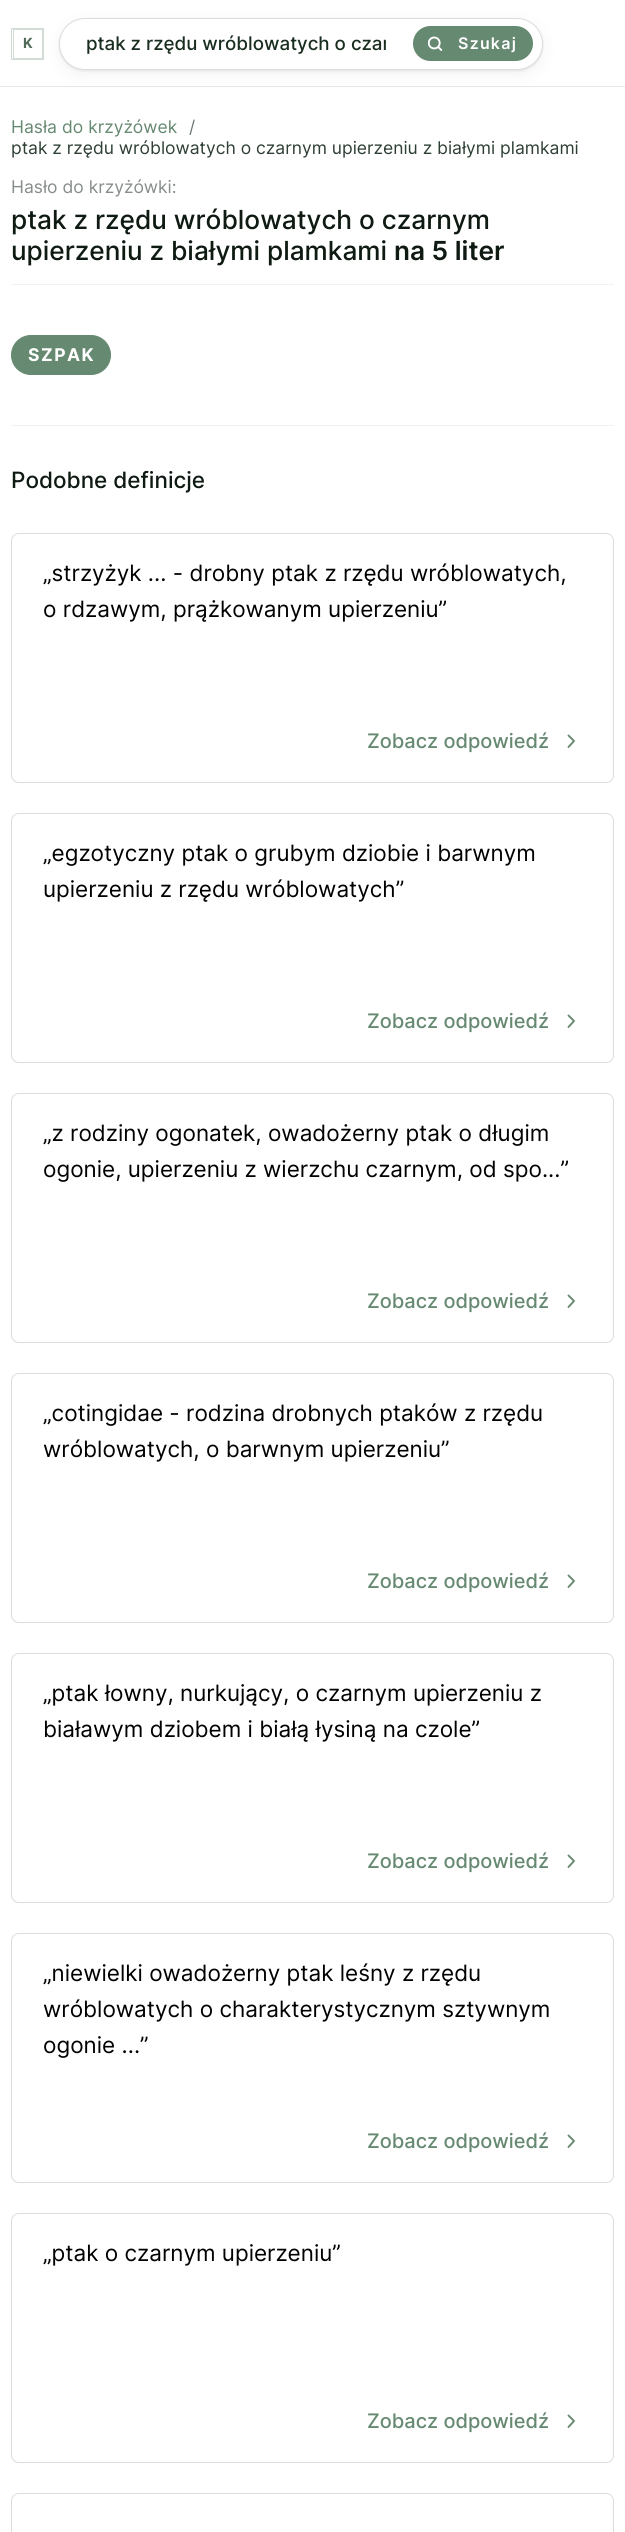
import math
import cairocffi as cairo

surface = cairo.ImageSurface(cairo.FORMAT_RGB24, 625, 2532)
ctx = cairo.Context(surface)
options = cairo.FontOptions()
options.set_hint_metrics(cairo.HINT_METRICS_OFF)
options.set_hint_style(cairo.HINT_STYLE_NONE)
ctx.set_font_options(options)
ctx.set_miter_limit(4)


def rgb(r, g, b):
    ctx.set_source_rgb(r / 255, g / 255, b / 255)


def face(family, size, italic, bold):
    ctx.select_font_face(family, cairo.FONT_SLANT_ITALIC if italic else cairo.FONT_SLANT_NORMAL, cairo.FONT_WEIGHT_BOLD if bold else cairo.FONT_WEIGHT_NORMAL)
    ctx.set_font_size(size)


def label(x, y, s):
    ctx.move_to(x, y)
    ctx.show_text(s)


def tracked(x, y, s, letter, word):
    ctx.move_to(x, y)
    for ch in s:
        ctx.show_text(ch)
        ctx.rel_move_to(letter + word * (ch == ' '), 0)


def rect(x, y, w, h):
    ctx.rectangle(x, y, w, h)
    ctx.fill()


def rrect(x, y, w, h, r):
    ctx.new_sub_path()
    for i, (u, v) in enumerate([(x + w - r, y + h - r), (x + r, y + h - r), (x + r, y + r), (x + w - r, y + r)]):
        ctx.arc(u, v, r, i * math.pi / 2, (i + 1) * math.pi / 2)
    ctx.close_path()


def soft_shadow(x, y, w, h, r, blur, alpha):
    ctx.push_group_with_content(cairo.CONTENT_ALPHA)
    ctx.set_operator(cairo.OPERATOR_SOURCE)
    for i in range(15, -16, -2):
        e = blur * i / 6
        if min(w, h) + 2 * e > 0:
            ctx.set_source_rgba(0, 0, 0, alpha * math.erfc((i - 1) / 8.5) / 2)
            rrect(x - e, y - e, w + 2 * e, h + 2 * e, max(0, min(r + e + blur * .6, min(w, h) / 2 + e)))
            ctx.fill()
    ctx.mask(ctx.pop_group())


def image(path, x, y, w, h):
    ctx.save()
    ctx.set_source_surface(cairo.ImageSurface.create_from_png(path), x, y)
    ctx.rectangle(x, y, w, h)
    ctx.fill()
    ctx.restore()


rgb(255, 255, 255)
ctx.paint()
rgb(230, 230, 230)
rect(0, 86, 625, 1)
ctx.rectangle(11.5, 28.5, 32, 31)
rgb(209, 220, 212)
ctx.set_line_width(1)
ctx.stroke()
ctx.rectangle(13.5, 29.5, 29, 29)
ctx.stroke()
face('Inter', 14, 0, 1)
rgb(80, 108, 89)
label(23, 48, 'K')
rgb(0, 0, 0)
soft_shadow(59, 23, 484, 52, 26, 7.5, 0.05)
soft_shadow(59, 19, 484, 52, 26, 1, 0.08)
rgb(255, 255, 255)
rrect(59.5, 18.5, 483, 51, 25.5)
ctx.fill_preserve()
rgb(221, 221, 221)
ctx.stroke()
ctx.save()
ctx.rectangle(86, 31, 300, 24)
ctx.clip()
face('Inter Medium', 18.75, 0, 0)
rgb(26, 46, 32)
label(86, 50, 'ptak z rzędu wróblowatych o czar')
ctx.restore()
rgb(102, 137, 113)
rrect(413, 26, 120, 35, 17.5)
ctx.fill()
image('image0.png', 428, 36, 15, 15)
face('Inter SemiBold', 16, 0, 0)
rgb(255, 255, 255)
tracked(458, 49, 'Szukaj', 1.25, 0)
face('Inter', 17.5, 0, 0)
rgb(102, 137, 113)
label(11, 133, 'Hasła do krzyżówek')
rgb(109, 121, 113)
label(189, 133, '/')
rgb(46, 63, 52)
label(11, 154, 'ptak z rzędu wróblowatych o czarnym upierzeniu z białymi plamkami')
rgb(135, 141, 137)
label(11, 193, 'Hasło do krzyżówki:')
face('Inter Medium', 26.25, 0, 0)
rgb(14, 26, 18)
label(11, 229, 'ptak z rzędu wróblowatych o czarnym')
label(11, 260, 'upierzeniu z białymi plamkami')
face('Inter SemiBold', 26.25, 0, 0)
label(394, 260, 'na 5 liter')
rgb(242, 242, 242)
rect(11, 284, 603, 1)
rect(11, 425, 603, 1)
rgb(102, 137, 113)
rrect(11.5, 335.5, 99, 39, 19.5)
ctx.fill_preserve()
ctx.stroke()
face('Inter', 17.5, 0, 1)
rgb(255, 255, 255)
tracked(28, 361, 'SZPAK', 1.5, 0)
face('Inter Medium', 22.5, 0, 0)
rgb(14, 26, 18)
label(11, 488, 'Podobne definicje')
rrect(11.5, 533.5, 602, 249, 7.5)
rgb(221, 221, 221)
ctx.stroke()
face('Inter', 22.5, 0, 0)
rgb(0, 0, 0)
label(43, 581, '„strzyżyk ... - drobny ptak z rzędu wróblowatych,')
label(43, 617, 'o rdzawym, prążkowanym upierzeniu”')
face('Inter Medium', 20, 0, 0)
rgb(102, 137, 113)
label(367, 748, 'Zobacz odpowiedź')
ctx.new_path()
ctx.move_to(568.5, 747)
ctx.line_to(574, 741)
ctx.line_to(568.5, 735.5)
ctx.set_line_width(1.9)
ctx.set_line_cap(cairo.LINE_CAP_ROUND)
ctx.set_line_join(cairo.LINE_JOIN_ROUND)
ctx.stroke()
rrect(11.5, 813.5, 602, 249, 7.5)
rgb(221, 221, 221)
ctx.set_line_width(1)
ctx.set_line_cap(cairo.LINE_CAP_BUTT)
ctx.set_line_join(cairo.LINE_JOIN_MITER)
ctx.stroke()
face('Inter', 22.5, 0, 0)
rgb(0, 0, 0)
label(43, 861, '„egzotyczny ptak o grubym dziobie i barwnym')
label(43, 897, 'upierzeniu z rzędu wróblowatych”')
face('Inter Medium', 20, 0, 0)
rgb(102, 137, 113)
label(367, 1028, 'Zobacz odpowiedź')
ctx.new_path()
ctx.move_to(568.5, 1027)
ctx.line_to(574, 1021)
ctx.line_to(568.5, 1015.5)
ctx.set_line_width(1.9)
ctx.set_line_cap(cairo.LINE_CAP_ROUND)
ctx.set_line_join(cairo.LINE_JOIN_ROUND)
ctx.stroke()
rrect(11.5, 1093.5, 602, 249, 7.5)
rgb(221, 221, 221)
ctx.set_line_width(1)
ctx.set_line_cap(cairo.LINE_CAP_BUTT)
ctx.set_line_join(cairo.LINE_JOIN_MITER)
ctx.stroke()
face('Inter', 22.5, 0, 0)
rgb(0, 0, 0)
label(43, 1141, '„z rodziny ogonatek, owadożerny ptak o długim')
label(43, 1177, 'ogonie, upierzeniu z wierzchu czarnym, od spo...”')
face('Inter Medium', 20, 0, 0)
rgb(102, 137, 113)
label(367, 1308, 'Zobacz odpowiedź')
ctx.new_path()
ctx.move_to(568.5, 1307)
ctx.line_to(574, 1301)
ctx.line_to(568.5, 1295.5)
ctx.set_line_width(1.9)
ctx.set_line_cap(cairo.LINE_CAP_ROUND)
ctx.set_line_join(cairo.LINE_JOIN_ROUND)
ctx.stroke()
rrect(11.5, 1373.5, 602, 249, 7.5)
rgb(221, 221, 221)
ctx.set_line_width(1)
ctx.set_line_cap(cairo.LINE_CAP_BUTT)
ctx.set_line_join(cairo.LINE_JOIN_MITER)
ctx.stroke()
face('Inter', 22.5, 0, 0)
rgb(0, 0, 0)
label(43, 1421, '„cotingidae - rodzina drobnych ptaków z rzędu')
label(43, 1457, 'wróblowatych, o barwnym upierzeniu”')
face('Inter Medium', 20, 0, 0)
rgb(102, 137, 113)
label(367, 1588, 'Zobacz odpowiedź')
ctx.new_path()
ctx.move_to(568.5, 1587)
ctx.line_to(574, 1581)
ctx.line_to(568.5, 1575.5)
ctx.set_line_width(1.9)
ctx.set_line_cap(cairo.LINE_CAP_ROUND)
ctx.set_line_join(cairo.LINE_JOIN_ROUND)
ctx.stroke()
rrect(11.5, 1653.5, 602, 249, 7.5)
rgb(221, 221, 221)
ctx.set_line_width(1)
ctx.set_line_cap(cairo.LINE_CAP_BUTT)
ctx.set_line_join(cairo.LINE_JOIN_MITER)
ctx.stroke()
face('Inter', 22.5, 0, 0)
rgb(0, 0, 0)
label(43, 1701, '„ptak łowny, nurkujący, o czarnym upierzeniu z')
label(43, 1737, 'białawym dziobem i białą łysiną na czole”')
face('Inter Medium', 20, 0, 0)
rgb(102, 137, 113)
label(367, 1868, 'Zobacz odpowiedź')
ctx.new_path()
ctx.move_to(568.5, 1867)
ctx.line_to(574, 1861)
ctx.line_to(568.5, 1855.5)
ctx.set_line_width(1.9)
ctx.set_line_cap(cairo.LINE_CAP_ROUND)
ctx.set_line_join(cairo.LINE_JOIN_ROUND)
ctx.stroke()
rrect(11.5, 1933.5, 602, 249, 7.5)
rgb(221, 221, 221)
ctx.set_line_width(1)
ctx.set_line_cap(cairo.LINE_CAP_BUTT)
ctx.set_line_join(cairo.LINE_JOIN_MITER)
ctx.stroke()
face('Inter', 22.5, 0, 0)
rgb(0, 0, 0)
label(43, 1981, '„niewielki owadożerny ptak leśny z rzędu')
label(43, 2017, 'wróblowatych o charakterystycznym sztywnym')
label(43, 2053, 'ogonie ...”')
face('Inter Medium', 20, 0, 0)
rgb(102, 137, 113)
label(367, 2148, 'Zobacz odpowiedź')
ctx.new_path()
ctx.move_to(568.5, 2147)
ctx.line_to(574, 2141)
ctx.line_to(568.5, 2135.5)
ctx.set_line_width(1.9)
ctx.set_line_cap(cairo.LINE_CAP_ROUND)
ctx.set_line_join(cairo.LINE_JOIN_ROUND)
ctx.stroke()
rrect(11.5, 2213.5, 602, 249, 7.5)
rgb(221, 221, 221)
ctx.set_line_width(1)
ctx.set_line_cap(cairo.LINE_CAP_BUTT)
ctx.set_line_join(cairo.LINE_JOIN_MITER)
ctx.stroke()
face('Inter', 22.5, 0, 0)
rgb(0, 0, 0)
label(43, 2261, '„ptak o czarnym upierzeniu”')
face('Inter Medium', 20, 0, 0)
rgb(102, 137, 113)
label(367, 2428, 'Zobacz odpowiedź')
ctx.new_path()
ctx.move_to(568.5, 2427)
ctx.line_to(574, 2421)
ctx.line_to(568.5, 2415.5)
ctx.set_line_width(1.9)
ctx.set_line_cap(cairo.LINE_CAP_ROUND)
ctx.set_line_join(cairo.LINE_JOIN_ROUND)
ctx.stroke()
rrect(11.5, 2493.5, 602, 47, 7.5)
rgb(221, 221, 221)
ctx.set_line_width(1)
ctx.set_line_cap(cairo.LINE_CAP_BUTT)
ctx.set_line_join(cairo.LINE_JOIN_MITER)
ctx.stroke()
surface.write_to_png('render.png')
